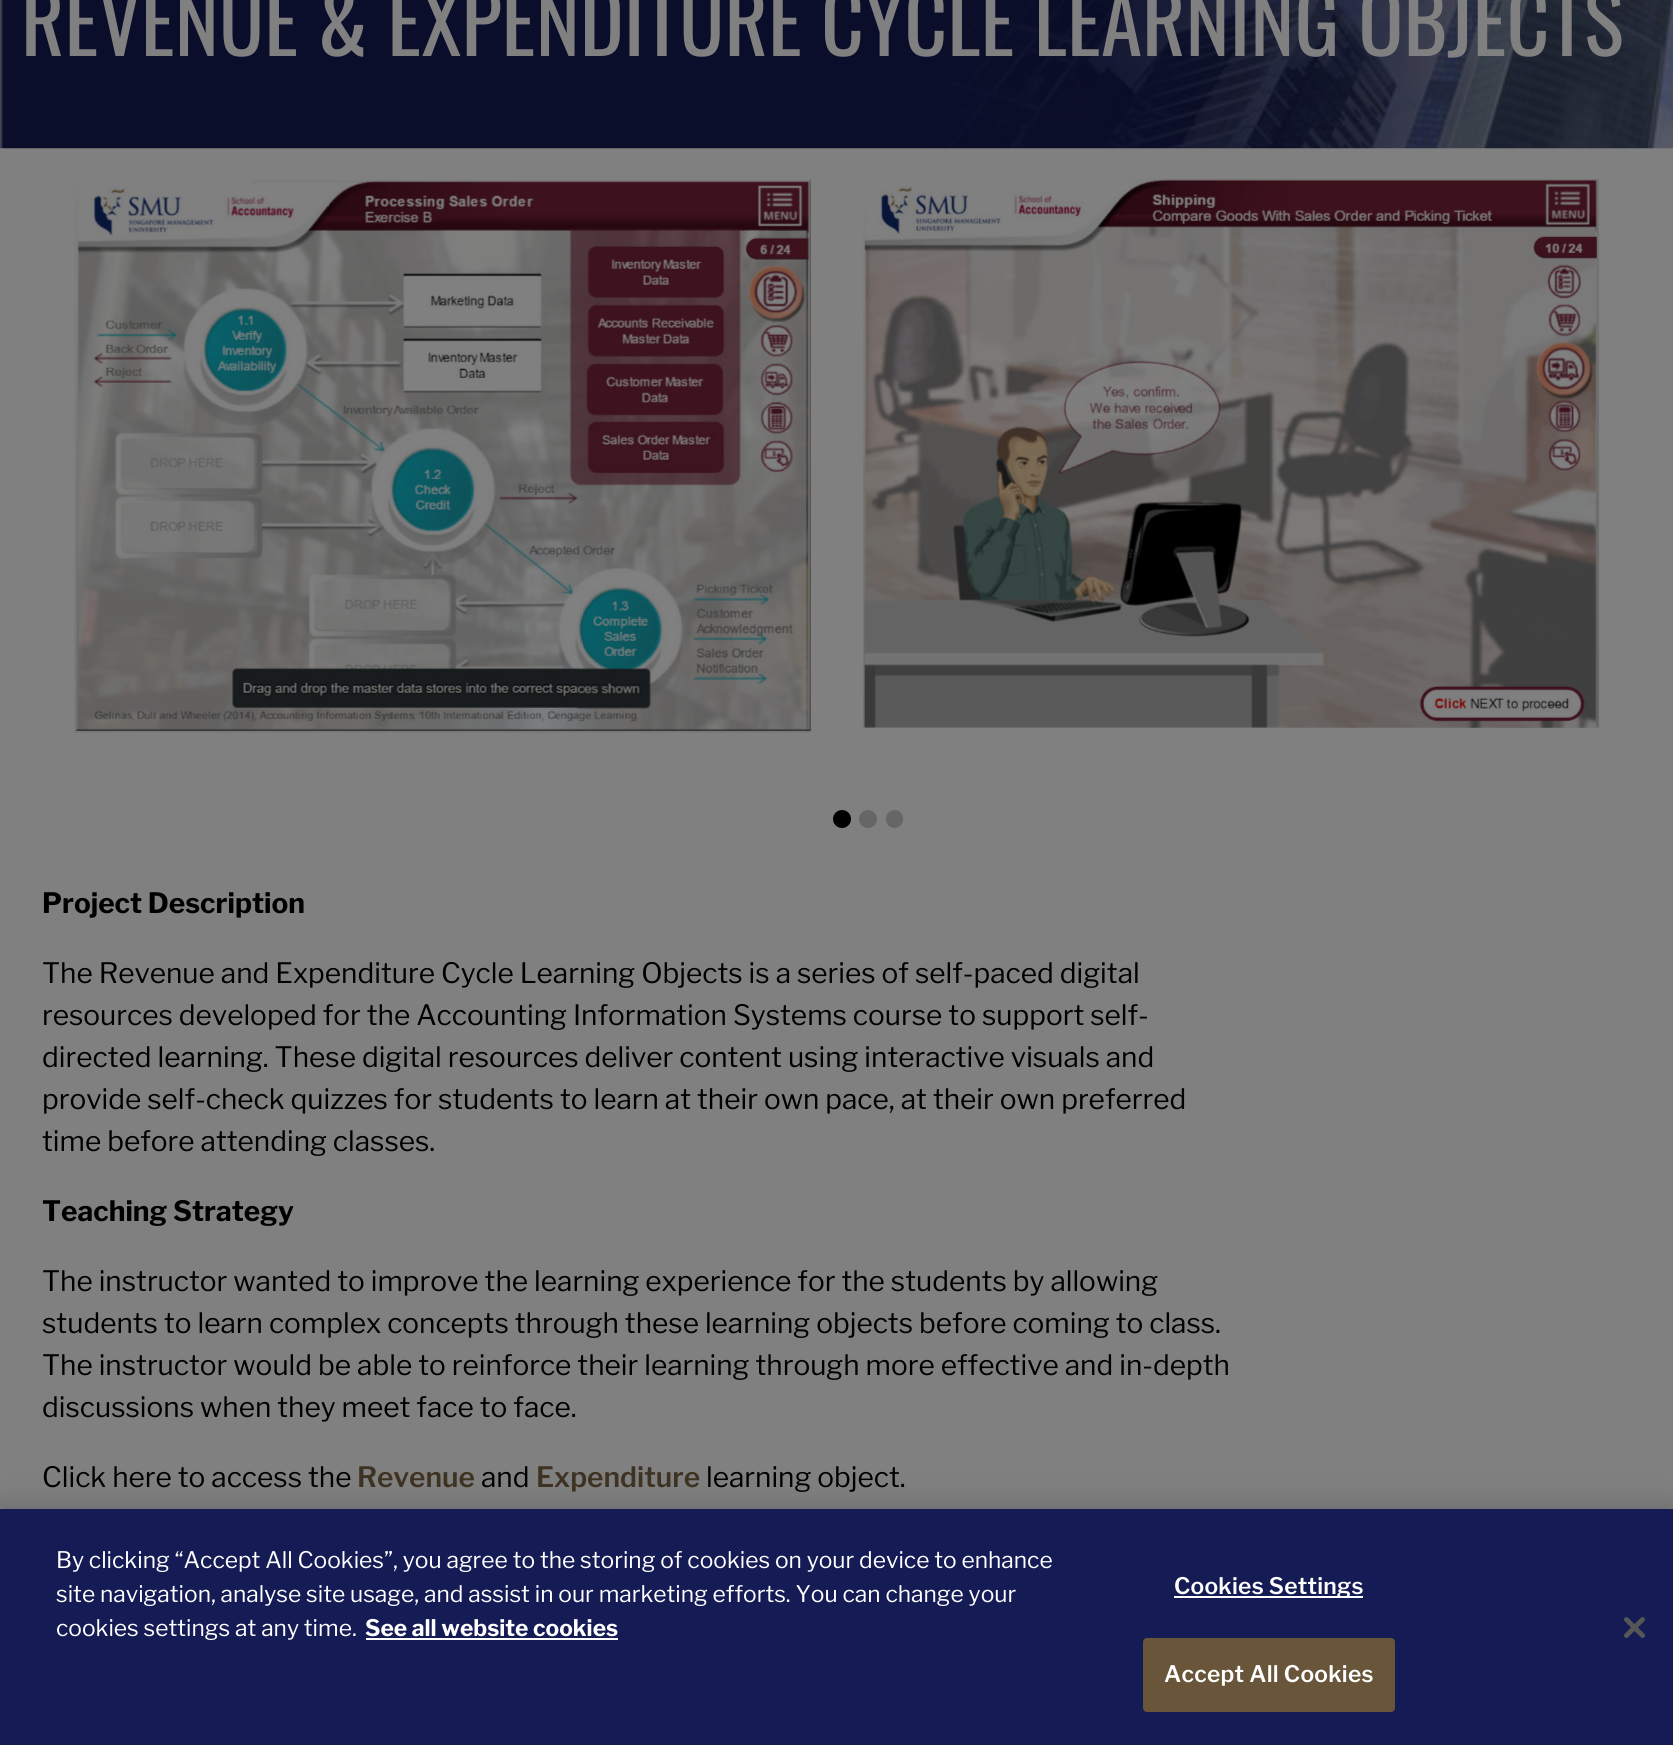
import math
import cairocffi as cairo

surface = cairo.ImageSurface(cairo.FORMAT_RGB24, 1673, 1745)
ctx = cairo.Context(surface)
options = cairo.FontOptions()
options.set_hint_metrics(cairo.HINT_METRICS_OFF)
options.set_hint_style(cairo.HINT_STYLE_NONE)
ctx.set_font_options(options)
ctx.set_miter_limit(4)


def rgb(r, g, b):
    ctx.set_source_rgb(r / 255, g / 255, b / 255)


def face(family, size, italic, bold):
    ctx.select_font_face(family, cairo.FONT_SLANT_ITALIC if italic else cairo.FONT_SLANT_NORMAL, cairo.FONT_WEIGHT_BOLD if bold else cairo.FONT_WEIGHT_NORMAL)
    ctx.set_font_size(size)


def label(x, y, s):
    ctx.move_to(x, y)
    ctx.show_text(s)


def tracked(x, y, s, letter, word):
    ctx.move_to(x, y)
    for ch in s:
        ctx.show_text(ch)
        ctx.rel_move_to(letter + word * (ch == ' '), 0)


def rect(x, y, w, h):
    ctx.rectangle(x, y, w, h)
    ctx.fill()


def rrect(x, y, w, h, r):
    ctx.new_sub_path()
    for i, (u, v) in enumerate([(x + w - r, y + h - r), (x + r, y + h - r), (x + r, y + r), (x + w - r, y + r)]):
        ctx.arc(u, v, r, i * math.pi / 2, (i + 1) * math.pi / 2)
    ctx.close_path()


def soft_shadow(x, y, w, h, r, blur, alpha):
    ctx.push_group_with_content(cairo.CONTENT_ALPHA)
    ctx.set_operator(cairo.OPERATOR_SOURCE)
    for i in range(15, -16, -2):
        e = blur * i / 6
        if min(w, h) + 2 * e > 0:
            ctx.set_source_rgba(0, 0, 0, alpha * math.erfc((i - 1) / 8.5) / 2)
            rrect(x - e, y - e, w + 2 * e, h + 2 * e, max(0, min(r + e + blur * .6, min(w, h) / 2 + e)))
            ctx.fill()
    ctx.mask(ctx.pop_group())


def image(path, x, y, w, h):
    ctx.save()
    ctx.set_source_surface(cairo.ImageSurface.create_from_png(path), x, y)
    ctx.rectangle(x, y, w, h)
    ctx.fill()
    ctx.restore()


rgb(128, 128, 128)
ctx.paint()
image('image0.png', 0, 0, 1673, 149)
face('Oswald', 83.6, 0, 0)
rgb(128, 128, 128)
label(21, 56, 'REVENUE & EXPENDITURE CYCLE LEARNING OBJECTS')
image('image1.png', 74, 179, 737, 554)
image('image2.png', 863, 178, 737, 550)
rgb(0, 0, 0)
ctx.arc(842, 819, 9, 0, 2 * math.pi)
ctx.fill()
rgb(102, 102, 102)
ctx.arc(868, 819, 9, 0, 2 * math.pi)
ctx.fill()
rrect(886, 810, 17, 18, 8.5)
ctx.fill()
face('Libre Franklin', 28, 0, 1)
rgb(0, 0, 0)
label(42, 913, 'Project Description')
face('Libre Franklin', 28, 0, 0)
label(42, 983, 'The Revenue and Expenditure Cycle Learning Objects is a series of self-paced digital')
label(42, 1025, 'resources developed for the Accounting Information Systems course to support self-')
label(42, 1067, 'directed learning. These digital resources deliver content using interactive visuals and')
label(42, 1109, 'provide self-check quizzes for students to learn at their own pace, at their own preferred')
label(42, 1151, 'time before attending classes.')
face('Libre Franklin', 28, 0, 1)
label(42, 1221, 'Teaching Strategy')
face('Libre Franklin', 28, 0, 0)
label(42, 1291, 'The instructor wanted to improve the learning experience for the students by allowing')
label(42, 1333, 'students to learn complex concepts through these learning objects before coming to class.')
label(42, 1375, 'The instructor would be able to reinforce their learning through more effective and in-depth')
label(42, 1417, 'discussions when they meet face to face.')
label(42, 1487, 'Click here to access the')
face('Libre Franklin SemiBold', 28, 0, 0)
rgb(62, 51, 34)
label(357, 1487, 'Revenue')
face('Libre Franklin', 28, 0, 0)
rgb(0, 0, 0)
label(481, 1487, 'and')
face('Libre Franklin SemiBold', 28, 0, 0)
rgb(62, 51, 34)
label(536, 1487, 'Expenditure')
face('Libre Franklin', 28, 0, 0)
rgb(0, 0, 0)
label(706, 1487, 'learning object.')
rgb(0, 0, 0)
soft_shadow(0, 1509, 1673, 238, 0, 16, 0.2)
rgb(21, 28, 85)
rect(0, 1509, 1673, 236)
face('Libre Franklin', 22.75, 0, 0)
rgb(255, 255, 255)
label(56, 1568, 'By clicking “Accept All Cookies”, you agree to the storing of cookies on your device to enhance')
label(56, 1602, 'site navigation, analyse site usage, and assist in our marketing efforts. You can change your')
label(56, 1636, 'cookies settings at any time.')
face('Libre Franklin', 22.75, 0, 1)
label(365, 1636, 'See all website cookies')
rect(366, 1638, 252, 2)
rect(1174, 1596, 189, 2)
face('Libre Franklin SemiBold', 22.75, 0, 0)
tracked(1174, 1594, 'Cookies Settings', 0.25, 0)
rgb(105, 85, 58)
rrect(1144, 1639, 250, 72, 3)
ctx.fill_preserve()
ctx.stroke()
rgb(255, 255, 255)
tracked(1164, 1682, 'Accept All Cookies', 0.25, 0)
image('image3.png', 1624, 1617, 21, 21)
surface.write_to_png('render.png')
